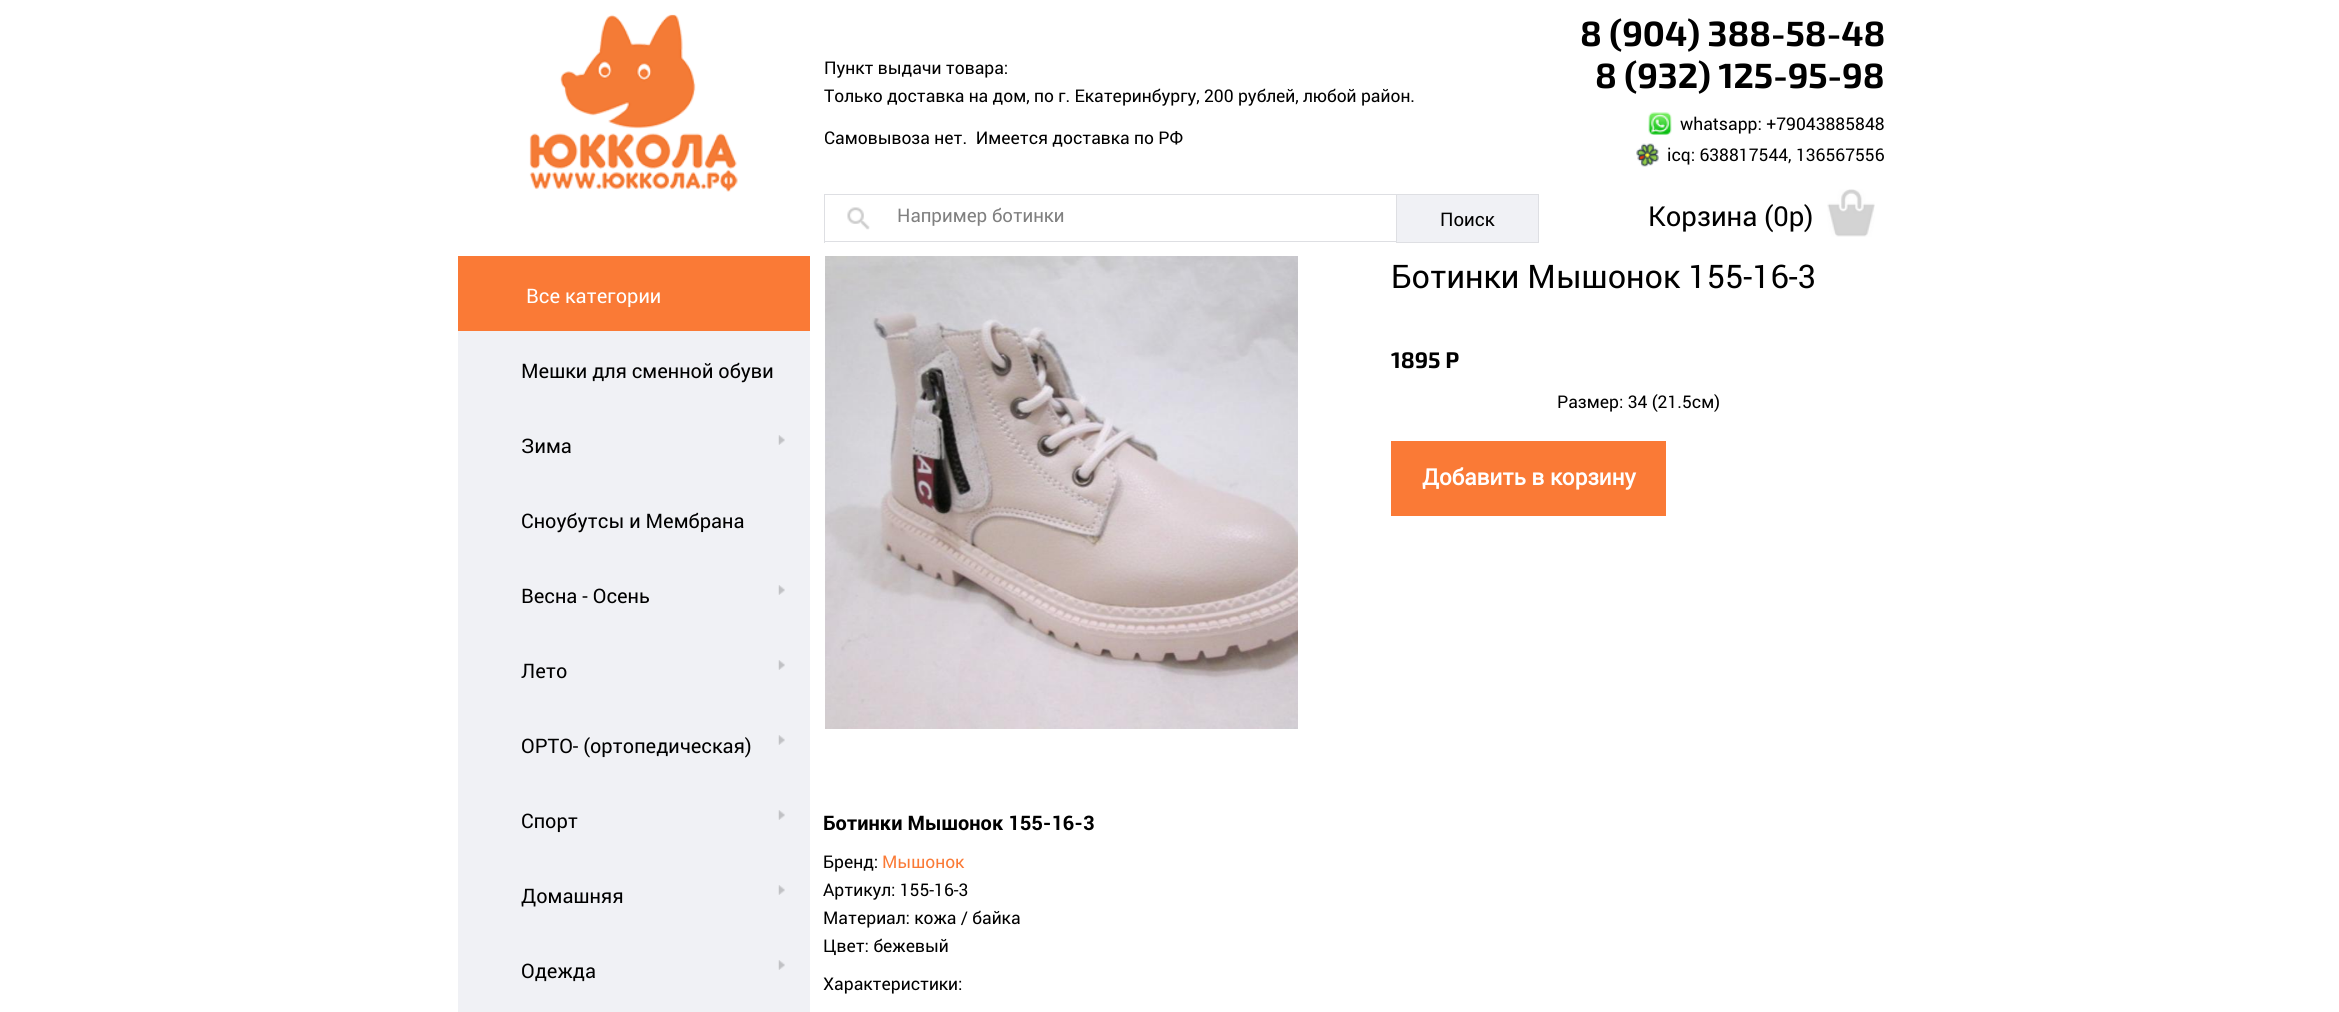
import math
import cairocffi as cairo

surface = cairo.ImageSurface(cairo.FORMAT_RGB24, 2339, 1012)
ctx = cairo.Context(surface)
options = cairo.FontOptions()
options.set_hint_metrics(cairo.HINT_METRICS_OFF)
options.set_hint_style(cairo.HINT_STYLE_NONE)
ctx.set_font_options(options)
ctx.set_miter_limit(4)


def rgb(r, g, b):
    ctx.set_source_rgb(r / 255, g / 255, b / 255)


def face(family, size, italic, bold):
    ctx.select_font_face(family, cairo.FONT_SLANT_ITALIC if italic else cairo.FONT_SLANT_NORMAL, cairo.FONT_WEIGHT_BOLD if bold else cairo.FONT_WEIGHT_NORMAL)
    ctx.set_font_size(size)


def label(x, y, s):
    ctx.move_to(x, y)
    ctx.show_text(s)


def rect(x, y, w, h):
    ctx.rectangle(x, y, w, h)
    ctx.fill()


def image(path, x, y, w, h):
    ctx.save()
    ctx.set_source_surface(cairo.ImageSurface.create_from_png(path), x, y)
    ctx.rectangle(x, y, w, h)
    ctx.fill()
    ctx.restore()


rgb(255, 255, 255)
ctx.paint()
image('image0.png', 529, 14, 209, 178)
face('Roboto', 17.5, 0, 0)
rgb(0, 0, 0)
label(824, 74, 'Пункт выдачи товара:')
label(824, 102, 'Только доставка на дом, по г. Екатеринбургу, 200 рублей, любой район.')
label(824, 144, 'Самовывоза нет.  Имеется доставка по РФ')
rgb(222, 223, 227)
rect(824, 194, 572, 1)
rect(824, 241, 572, 1)
rect(824, 194, 1, 49)
image('image1.png', 847, 207, 23, 23)
face('Roboto', 18.75, 0, 0)
rgb(128, 128, 128)
label(897, 222, 'Например ботинки')
rgb(240, 241, 245)
ctx.rectangle(1396.5, 194.5, 142, 48)
ctx.fill_preserve()
rgb(222, 223, 227)
ctx.set_line_width(1)
ctx.stroke()
rgb(0, 0, 0)
label(1440, 226, 'Поиск')
face('Exo 2', 35, 0, 1)
label(1580, 46, '8 (904) 388-58-48')
label(1595, 88, '8 (932) 125-95-98')
image('image2.png', 1648, 112, 24, 23)
face('Roboto', 17.5, 0, 0)
label(1680, 130, 'whatsapp: +79043885848')
image('image3.png', 1636, 143, 23, 24)
label(1667, 161, 'icq: 638817544, 136567556')
face('Roboto', 27.5, 0, 0)
label(1648, 226, 'Корзина (0p)')
image('image4.png', 1827, 189, 48, 48)
rgb(250, 122, 54)
rect(458, 256, 352, 75)
face('Roboto', 20, 0, 0)
rgb(255, 255, 255)
label(526, 303, 'Все категории')
rgb(240, 241, 245)
rect(458, 331, 352, 681)
rgb(0, 0, 0)
label(521, 378, 'Мешки для сменной обуви')
label(521, 453, 'Зима')
image('image5.png', 778, 435, 7, 10)
label(521, 528, 'Сноубутсы и Мембрана')
label(521, 603, 'Весна - Осень')
image('image6.png', 778, 585, 7, 10)
label(521, 678, 'Лето')
image('image5.png', 778, 660, 7, 10)
label(521, 753, 'ОРТО- (ортопедическая)')
image('image5.png', 778, 735, 7, 10)
label(521, 828, 'Спорт')
image('image5.png', 778, 810, 7, 10)
label(521, 903, 'Домашняя')
image('image5.png', 778, 885, 7, 10)
label(521, 978, 'Одежда')
image('image5.png', 778, 960, 7, 10)
image('image7.png', 825, 256, 473, 473)
face('Roboto', 32.5, 0, 0)
label(1391, 288, 'Ботинки Мышонок 155-16-3')
face('Exo 2', 22.5, 0, 1)
label(1391, 368, '1895 Р')
face('Roboto', 17.5, 0, 0)
label(1557, 408, 'Размер: 34 (21.5см)')
rgb(250, 122, 54)
rect(1391, 441, 275, 75)
face('Roboto', 22.5, 0, 1)
rgb(255, 255, 255)
label(1422, 485, 'Добавить в корзину')
face('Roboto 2', 20, 0, 1)
rgb(0, 0, 0)
label(823, 830, 'Ботинки Мышонок 155-16-3')
face('Roboto', 17.5, 0, 0)
label(823, 868, 'Бренд:')
rgb(250, 122, 54)
label(882, 868, 'Мышонок')
rgb(0, 0, 0)
label(823, 896, 'Артикул: 155-16-3')
label(823, 924, 'Материал: кожа / байка')
label(823, 952, 'Цвет: бежевый')
label(823, 990, 'Характеристики:')
surface.write_to_png('render.png')
